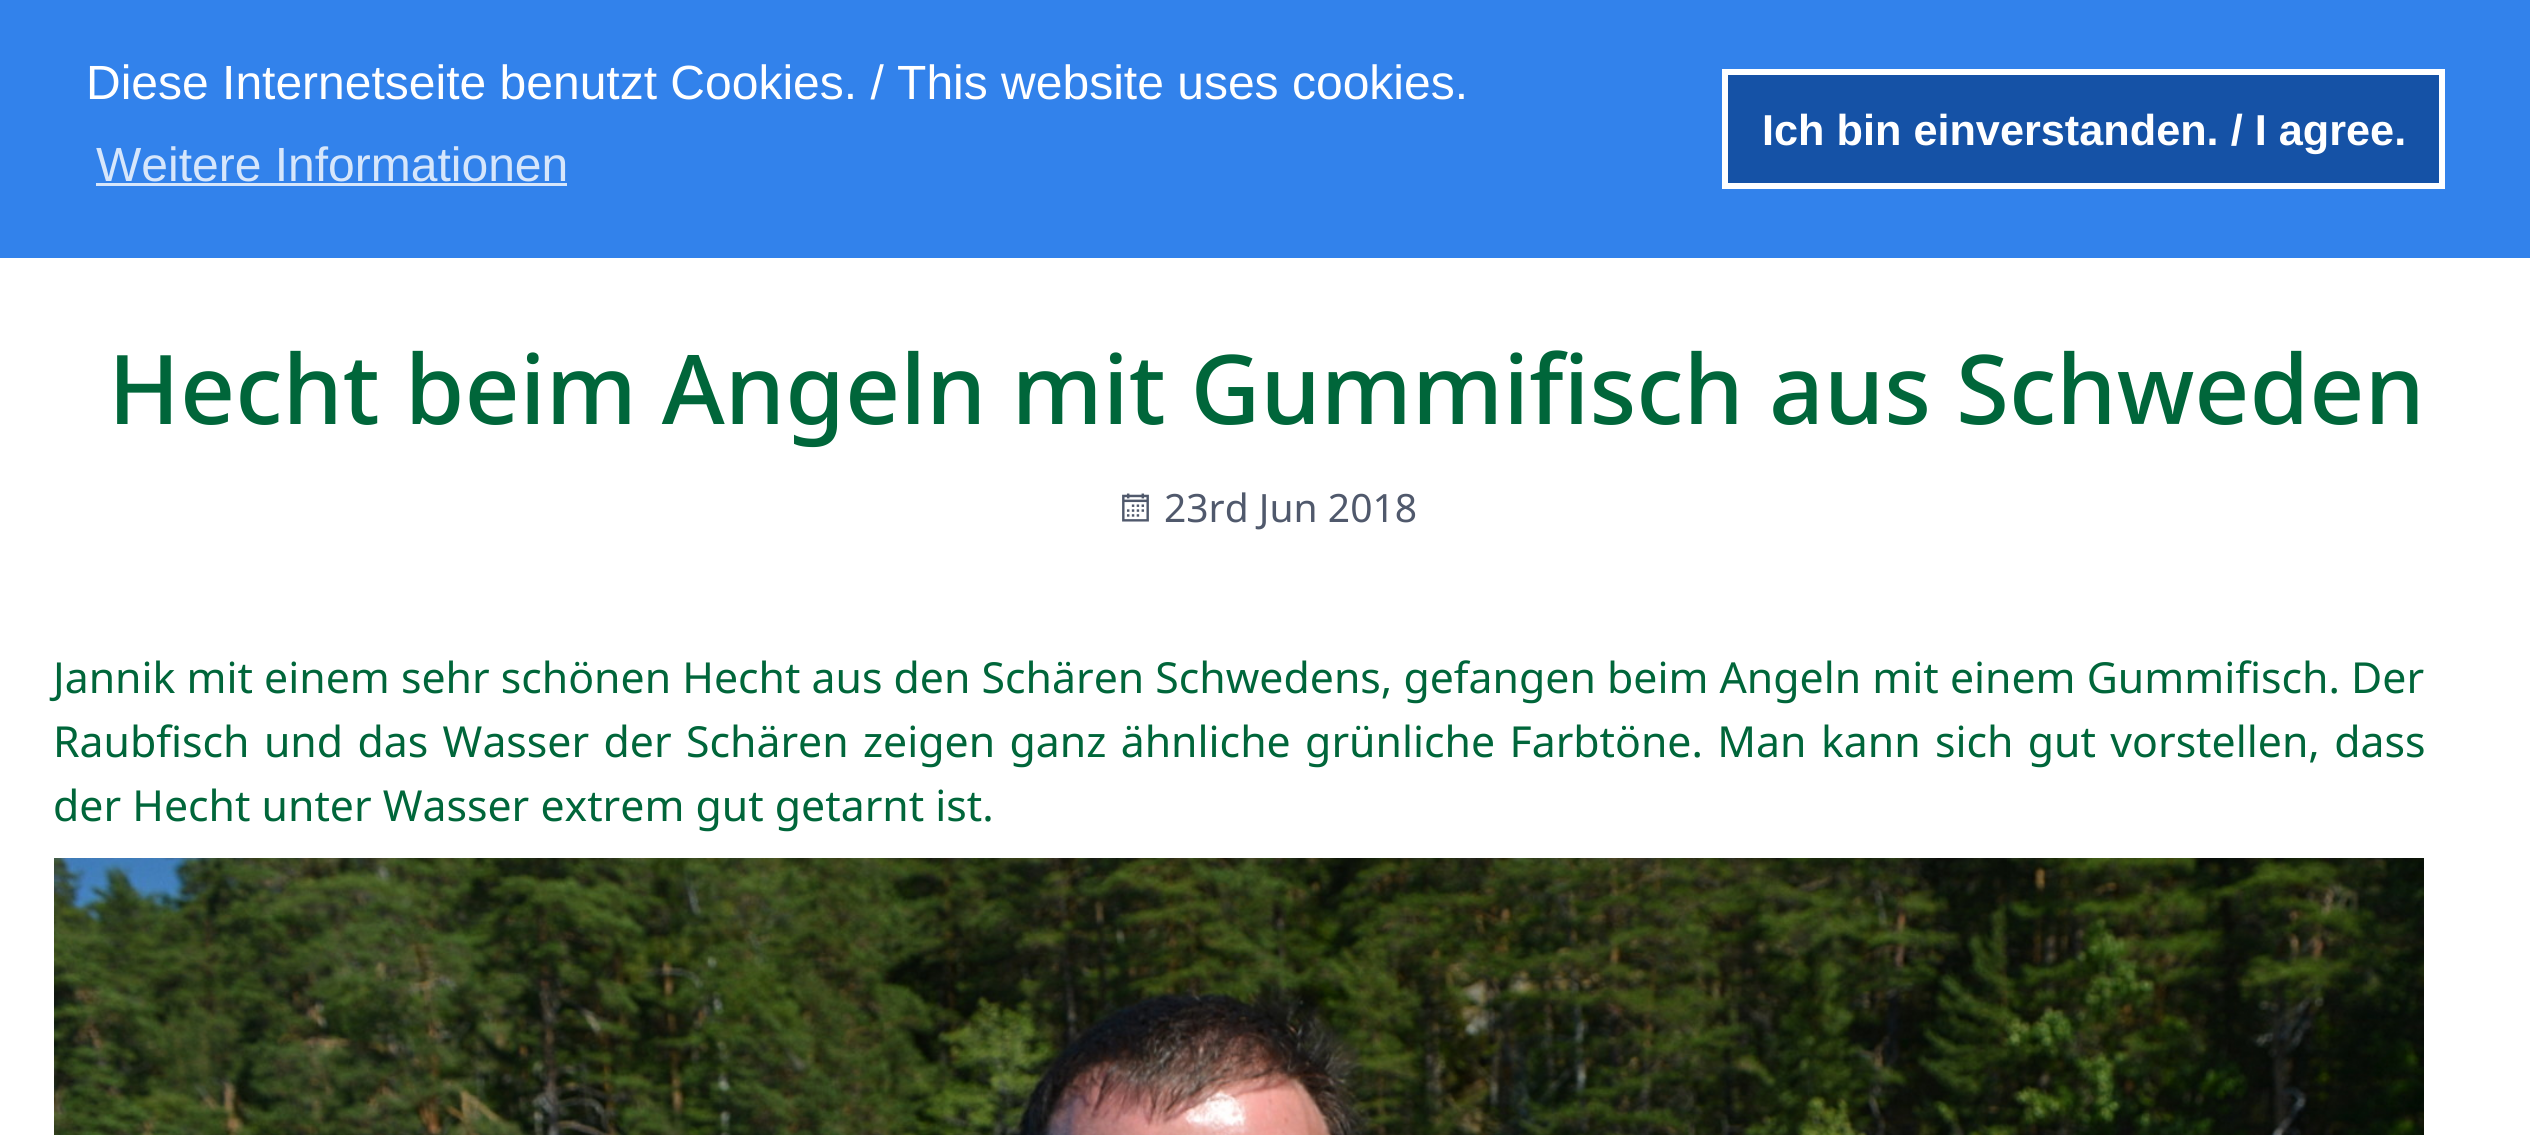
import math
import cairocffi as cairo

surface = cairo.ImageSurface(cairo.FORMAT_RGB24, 2530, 1135)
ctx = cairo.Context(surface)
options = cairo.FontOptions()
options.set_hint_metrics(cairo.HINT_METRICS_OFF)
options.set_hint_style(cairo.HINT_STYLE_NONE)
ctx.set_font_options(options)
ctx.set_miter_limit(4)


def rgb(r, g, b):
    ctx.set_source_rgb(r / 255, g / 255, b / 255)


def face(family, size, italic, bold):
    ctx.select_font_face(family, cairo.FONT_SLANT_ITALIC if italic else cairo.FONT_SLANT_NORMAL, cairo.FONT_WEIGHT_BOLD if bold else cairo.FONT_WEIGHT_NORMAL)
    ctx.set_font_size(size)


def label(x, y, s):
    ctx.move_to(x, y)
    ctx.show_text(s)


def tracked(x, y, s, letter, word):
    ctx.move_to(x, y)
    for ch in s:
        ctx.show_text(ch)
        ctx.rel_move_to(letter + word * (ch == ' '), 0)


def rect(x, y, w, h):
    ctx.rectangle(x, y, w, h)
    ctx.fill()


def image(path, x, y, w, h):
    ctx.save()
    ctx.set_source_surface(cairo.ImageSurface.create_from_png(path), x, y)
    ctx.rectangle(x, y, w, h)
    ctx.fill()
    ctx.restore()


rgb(255, 255, 255)
ctx.paint()
rgb(50, 130, 235)
rect(0, 0, 2530, 258)
face('Liberation Sans', 48, 0, 0)
rgb(255, 255, 255)
label(86, 99, 'Diese Internetseite benutzt Cookies. / This website uses cookies.')
rgb(214, 230, 251)
label(96, 181, 'Weitere Informationen')
rect(96, 183, 471, 3)
rgb(21, 82, 166)
ctx.rectangle(1725, 72, 717, 114)
ctx.fill_preserve()
rgb(255, 255, 255)
ctx.set_line_width(6)
ctx.stroke()
face('Liberation Sans', 43.25, 0, 1)
label(1762, 145, 'Ich bin einverstanden. / I agree.')
face('Noto Sans Medium', 96.25, 0, 0)
rgb(0, 102, 58)
label(108, 424, 'Hecht beim Angeln mit Gummifisch aus Schweden')
image('image0.png', 1122, 493, 27, 29)
face('Noto Sans', 39, 0, 0)
rgb(80, 89, 108)
label(1164, 522, '23rd Jun 2018')
face('Noto Sans', 42.77, 0, 0)
rgb(0, 102, 58)
label(53, 693, 'Jannik mit einem sehr schönen Hecht aus den Schären Schwedens, gefangen beim Angeln mit einem Gummifisch. Der')
tracked(53, 757, 'Raubfisch und das Wasser der Schären zeigen ganz ähnliche grünliche Farbtöne. Man kann sich gut vorstellen, dass', 0, 3.25)
label(53, 821, 'der Hecht unter Wasser extrem gut getarnt ist.')
image('image1.png', 54, 858, 2370, 277)
surface.write_to_png('render.png')
